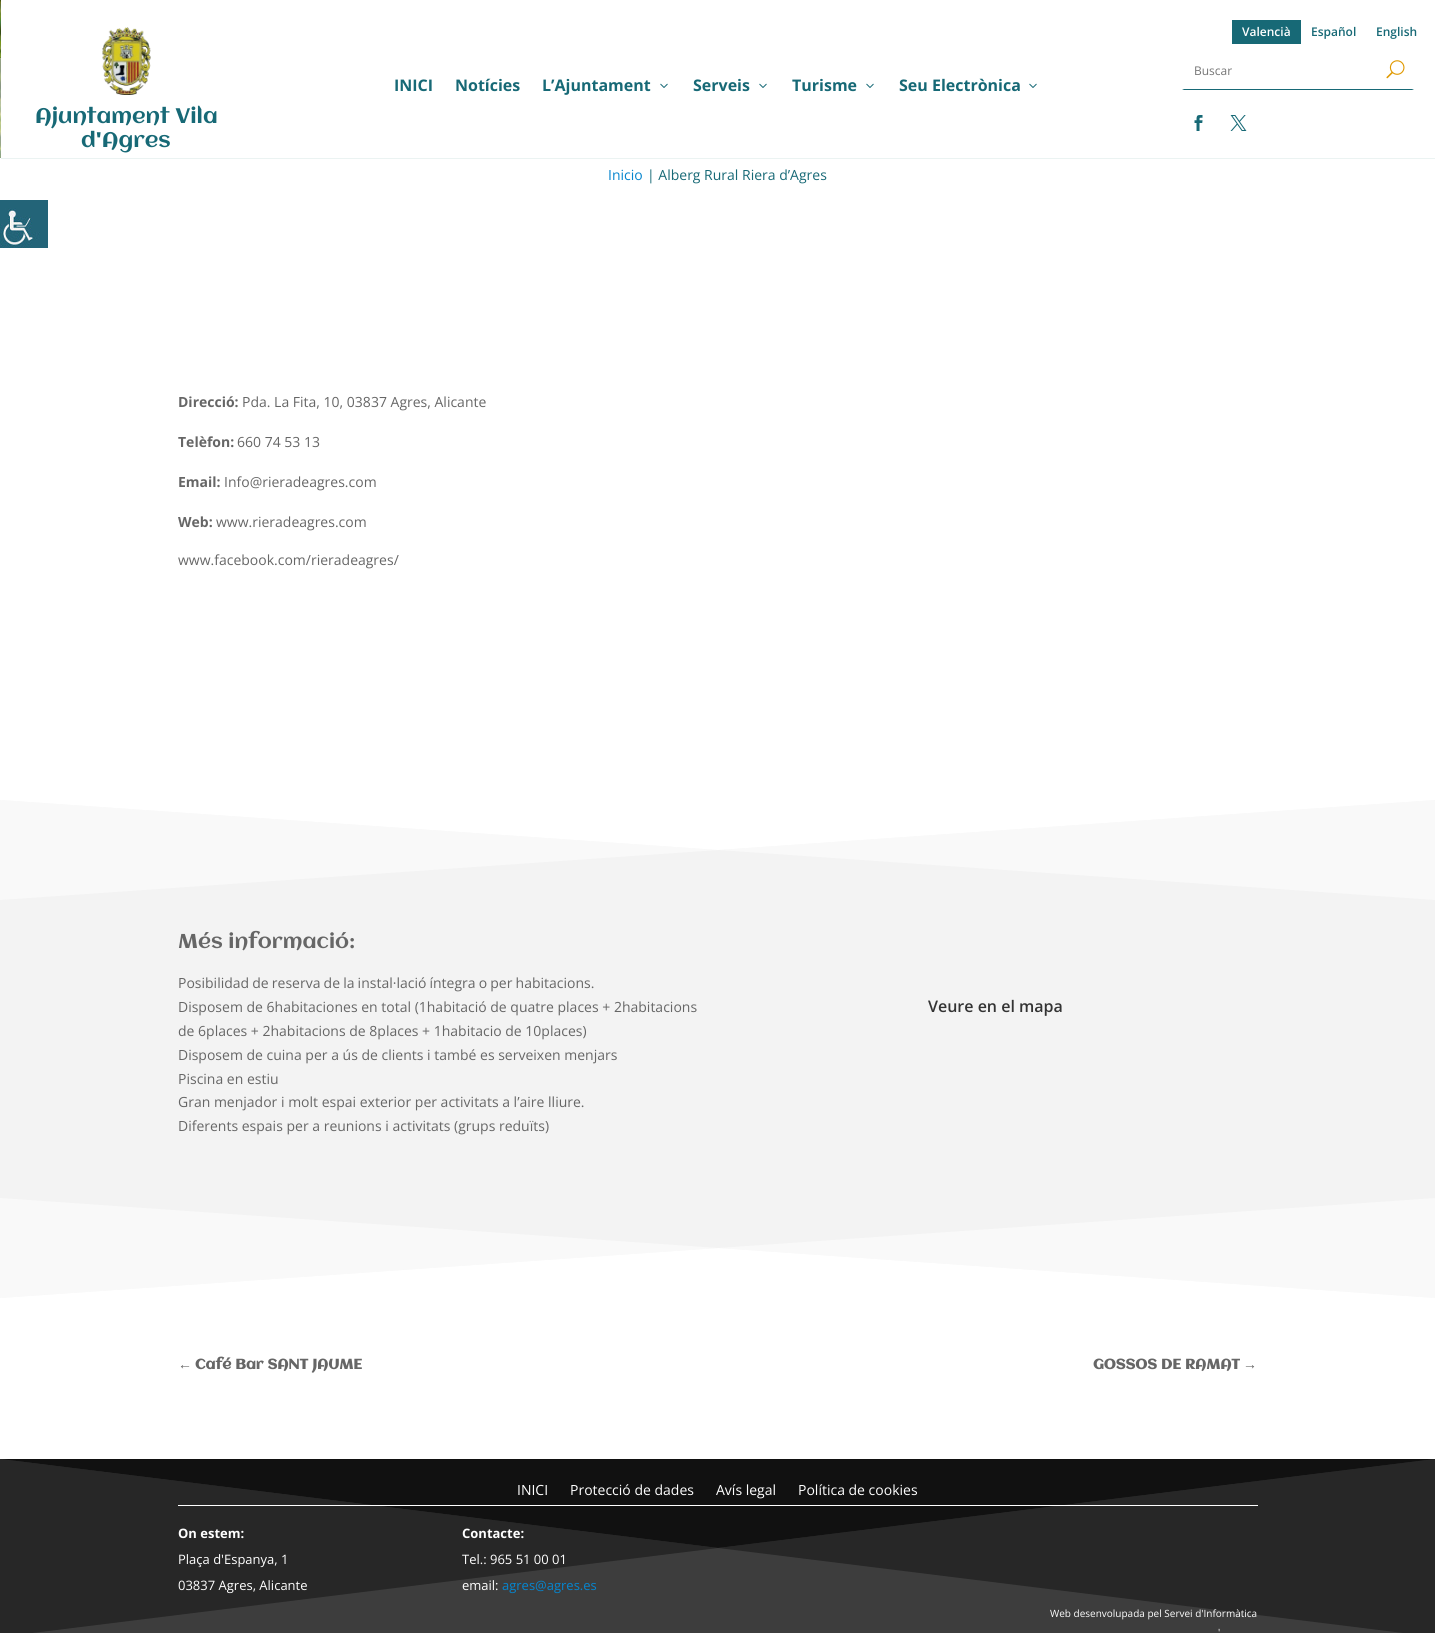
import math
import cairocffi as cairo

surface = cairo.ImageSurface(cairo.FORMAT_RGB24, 1435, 1633)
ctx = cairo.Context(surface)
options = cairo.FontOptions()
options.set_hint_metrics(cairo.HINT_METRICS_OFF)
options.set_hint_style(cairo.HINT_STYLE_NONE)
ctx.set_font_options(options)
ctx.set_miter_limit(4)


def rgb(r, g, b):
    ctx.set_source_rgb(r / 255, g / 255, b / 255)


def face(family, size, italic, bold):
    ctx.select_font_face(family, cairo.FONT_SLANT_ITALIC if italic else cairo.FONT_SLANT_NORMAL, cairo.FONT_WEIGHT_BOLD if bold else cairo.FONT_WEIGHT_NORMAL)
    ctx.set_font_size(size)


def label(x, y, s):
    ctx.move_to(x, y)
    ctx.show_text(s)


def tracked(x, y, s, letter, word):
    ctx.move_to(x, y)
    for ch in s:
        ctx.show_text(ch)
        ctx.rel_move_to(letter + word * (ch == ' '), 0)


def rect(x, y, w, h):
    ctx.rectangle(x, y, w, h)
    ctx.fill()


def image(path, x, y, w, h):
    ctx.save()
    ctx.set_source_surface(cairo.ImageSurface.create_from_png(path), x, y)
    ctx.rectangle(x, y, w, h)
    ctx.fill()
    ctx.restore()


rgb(255, 255, 255)
ctx.paint()
image('image0.png', 0, 200, 48, 48)
image('image1.png', 0, 0, 1, 158)
ctx.set_source_rgba(1, 1, 1, 0.5)
ctx.new_path()
ctx.move_to(0, 158)
ctx.line_to(718, 108)
ctx.line_to(1435, 158)
ctx.line_to(1435, 58)
ctx.line_to(718, 108)
ctx.line_to(0, 58)
ctx.close_path()
ctx.fill()
rgb(235, 243, 242)
rect(1, 158, 1434, 1)
rgb(23, 105, 118)
rect(1232, 20, 69, 24)
face('Open Sans SemiBold', 12, 0, 0)
rgb(255, 255, 255)
label(1242, 36, 'Valencià')
rgb(23, 105, 118)
label(1311, 36, 'Español')
label(1376, 36, 'English')
ctx.new_path()
ctx.move_to(1414, 90)
ctx.line_to(1182, 90)
ctx.line_to(1184, 89)
ctx.line_to(1412, 89)
ctx.close_path()
ctx.fill()
face('Open Sans', 12, 0, 0)
rgb(117, 117, 117)
label(1194, 75, 'Buscar')
image('image2.png', 1386, 60, 19, 19)
image('image3.png', 1194, 115, 9, 16)
image('image4.png', 1230, 115, 17, 16)
face('Open Sans', 16, 0, 1)
rgb(23, 105, 118)
label(394, 91, 'INICI')
label(455, 91, 'Notícies')
label(542, 91, 'L’Ajuntament')
image('image5.png', 660, 83, 8, 5)
label(693, 91, 'Serveis')
image('image5.png', 759, 83, 8, 5)
label(792, 91, 'Turisme')
image('image5.png', 866, 83, 8, 5)
label(899, 91, 'Seu Electrònica')
image('image5.png', 1029, 83, 8, 5)
image('image6.png', 102, 27, 49, 68)
face('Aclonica', 21, 0, 0)
label(35, 123, 'Ajuntament Vila')
label(81, 147, 'd\'Agres')
face('Open Sans', 14, 0, 0)
rgb(6, 133, 206)
label(608, 180, 'Inicio')
rgb(23, 105, 118)
label(647, 180, '| Alberg Rural Riera d’Agres')
face('Open Sans', 14, 0, 1)
rgb(102, 102, 102)
label(178, 407, 'Direcció:')
face('Open Sans', 14, 0, 0)
label(242, 407, 'Pda. La Fita, 10, 03837 Agres, Alicante')
face('Open Sans', 14, 0, 1)
label(178, 447, 'Telèfon:')
face('Open Sans', 14, 0, 0)
label(237, 447, '660 74 53 13')
face('Open Sans', 14, 0, 1)
label(178, 487, 'Email:')
face('Open Sans', 14, 0, 0)
label(224, 487, 'Info@rieradeagres.com')
face('Open Sans', 14, 0, 1)
label(178, 527, 'Web:')
face('Open Sans', 14, 0, 0)
label(216, 527, 'www.rieradeagres.com')
label(178, 565, 'www.facebook.com/rieradeagres/')
rgb(243, 243, 243)
rect(0, 800, 1435, 498)
rgb(249, 249, 249)
ctx.new_path()
ctx.move_to(1435, 800)
ctx.line_to(718, 850)
ctx.line_to(0, 800)
ctx.line_to(0, 900)
ctx.line_to(718, 850)
ctx.line_to(1435, 900)
ctx.close_path()
ctx.fill()
rgb(255, 255, 255)
ctx.new_path()
ctx.move_to(1435, 800)
ctx.line_to(0, 800)
ctx.line_to(718, 850)
ctx.close_path()
ctx.fill()
face('Aclonica', 20, 0, 0)
rgb(102, 102, 102)
label(178, 948, 'Més informació:')
face('Open Sans', 14, 0, 0)
tracked(178, 988, 'Posibilidad de reserva de la instal·lació íntegra o per habitacions.', 0, -0.5)
label(178, 1012, 'Disposem de 6habitaciones en total (1habitació de quatre places + 2habitacions')
label(178, 1036, 'de 6places + 2habitacions de 8places + 1habitacio de 10places)')
label(178, 1060, 'Disposem de cuina per a ús de clients i també es serveixen menjars')
label(178, 1084, 'Piscina en estiu')
label(178, 1107, 'Gran menjador i molt espai exterior per activitats a l’aire lliure.')
label(178, 1131, 'Diferents espais per a reunions i activitats (grups reduïts)')
face('Open Sans SemiBold', 16, 0, 0)
rgb(51, 51, 51)
label(928, 1012, 'Veure en el mapa')
rgb(249, 249, 249)
ctx.new_path()
ctx.move_to(0, 1298)
ctx.line_to(718, 1248)
ctx.line_to(1435, 1298)
ctx.line_to(1435, 1198)
ctx.line_to(718, 1248)
ctx.line_to(0, 1198)
ctx.close_path()
ctx.fill()
rgb(255, 255, 255)
ctx.new_path()
ctx.move_to(0, 1298)
ctx.line_to(1435, 1298)
ctx.line_to(718, 1248)
ctx.close_path()
ctx.fill()
face('Liberation Sans', 14, 0, 1)
rgb(102, 102, 102)
label(178, 1369, '←')
face('Aclonica', 14, 0, 1)
label(195, 1369, 'Café Bar SANT JAUME')
label(1093, 1369, 'GOSSOS DE RAMAT')
face('Liberation Sans', 14, 0, 1)
label(1243, 1369, '→')
rgb(61, 61, 61)
rect(0, 1459, 1435, 174)
rgb(39, 39, 39)
ctx.new_path()
ctx.move_to(1435, 1459)
ctx.line_to(718, 1548)
ctx.line_to(0, 1459)
ctx.line_to(0, 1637)
ctx.line_to(718, 1548)
ctx.line_to(1435, 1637)
ctx.close_path()
ctx.fill()
rgb(17, 17, 17)
ctx.new_path()
ctx.move_to(1435, 1459)
ctx.line_to(0, 1459)
ctx.line_to(718, 1548)
ctx.close_path()
ctx.fill()
rgb(255, 255, 255)
rect(178, 1505, 1080, 1)
face('Open Sans', 14, 0, 0)
label(517, 1495, 'INICI')
label(570, 1495, 'Protecció de dades')
label(716, 1495, 'Avís legal')
label(798, 1495, 'Política de cookies')
face('Open Sans', 13, 0, 1)
label(178, 1538, 'On estem:')
face('Open Sans', 13, 0, 0)
label(178, 1564, 'Plaça d\'Espanya, 1')
label(178, 1590, '03837 Agres, Alicante')
face('Open Sans', 13, 0, 1)
label(462, 1538, 'Contacte:')
face('Open Sans', 13, 0, 0)
label(462, 1564, 'Tel.: 965 51 00 01')
label(462, 1590, 'email:')
rgb(6, 133, 206)
label(502, 1590, 'agres@agres.es')
face('Open Sans', 10, 0, 0)
rgb(255, 255, 255)
label(1050, 1617, 'Web desenvolupada pel Servei d\'Informàtica')
label(1218, 1636, '\'')
surface.write_to_png('render.png')
